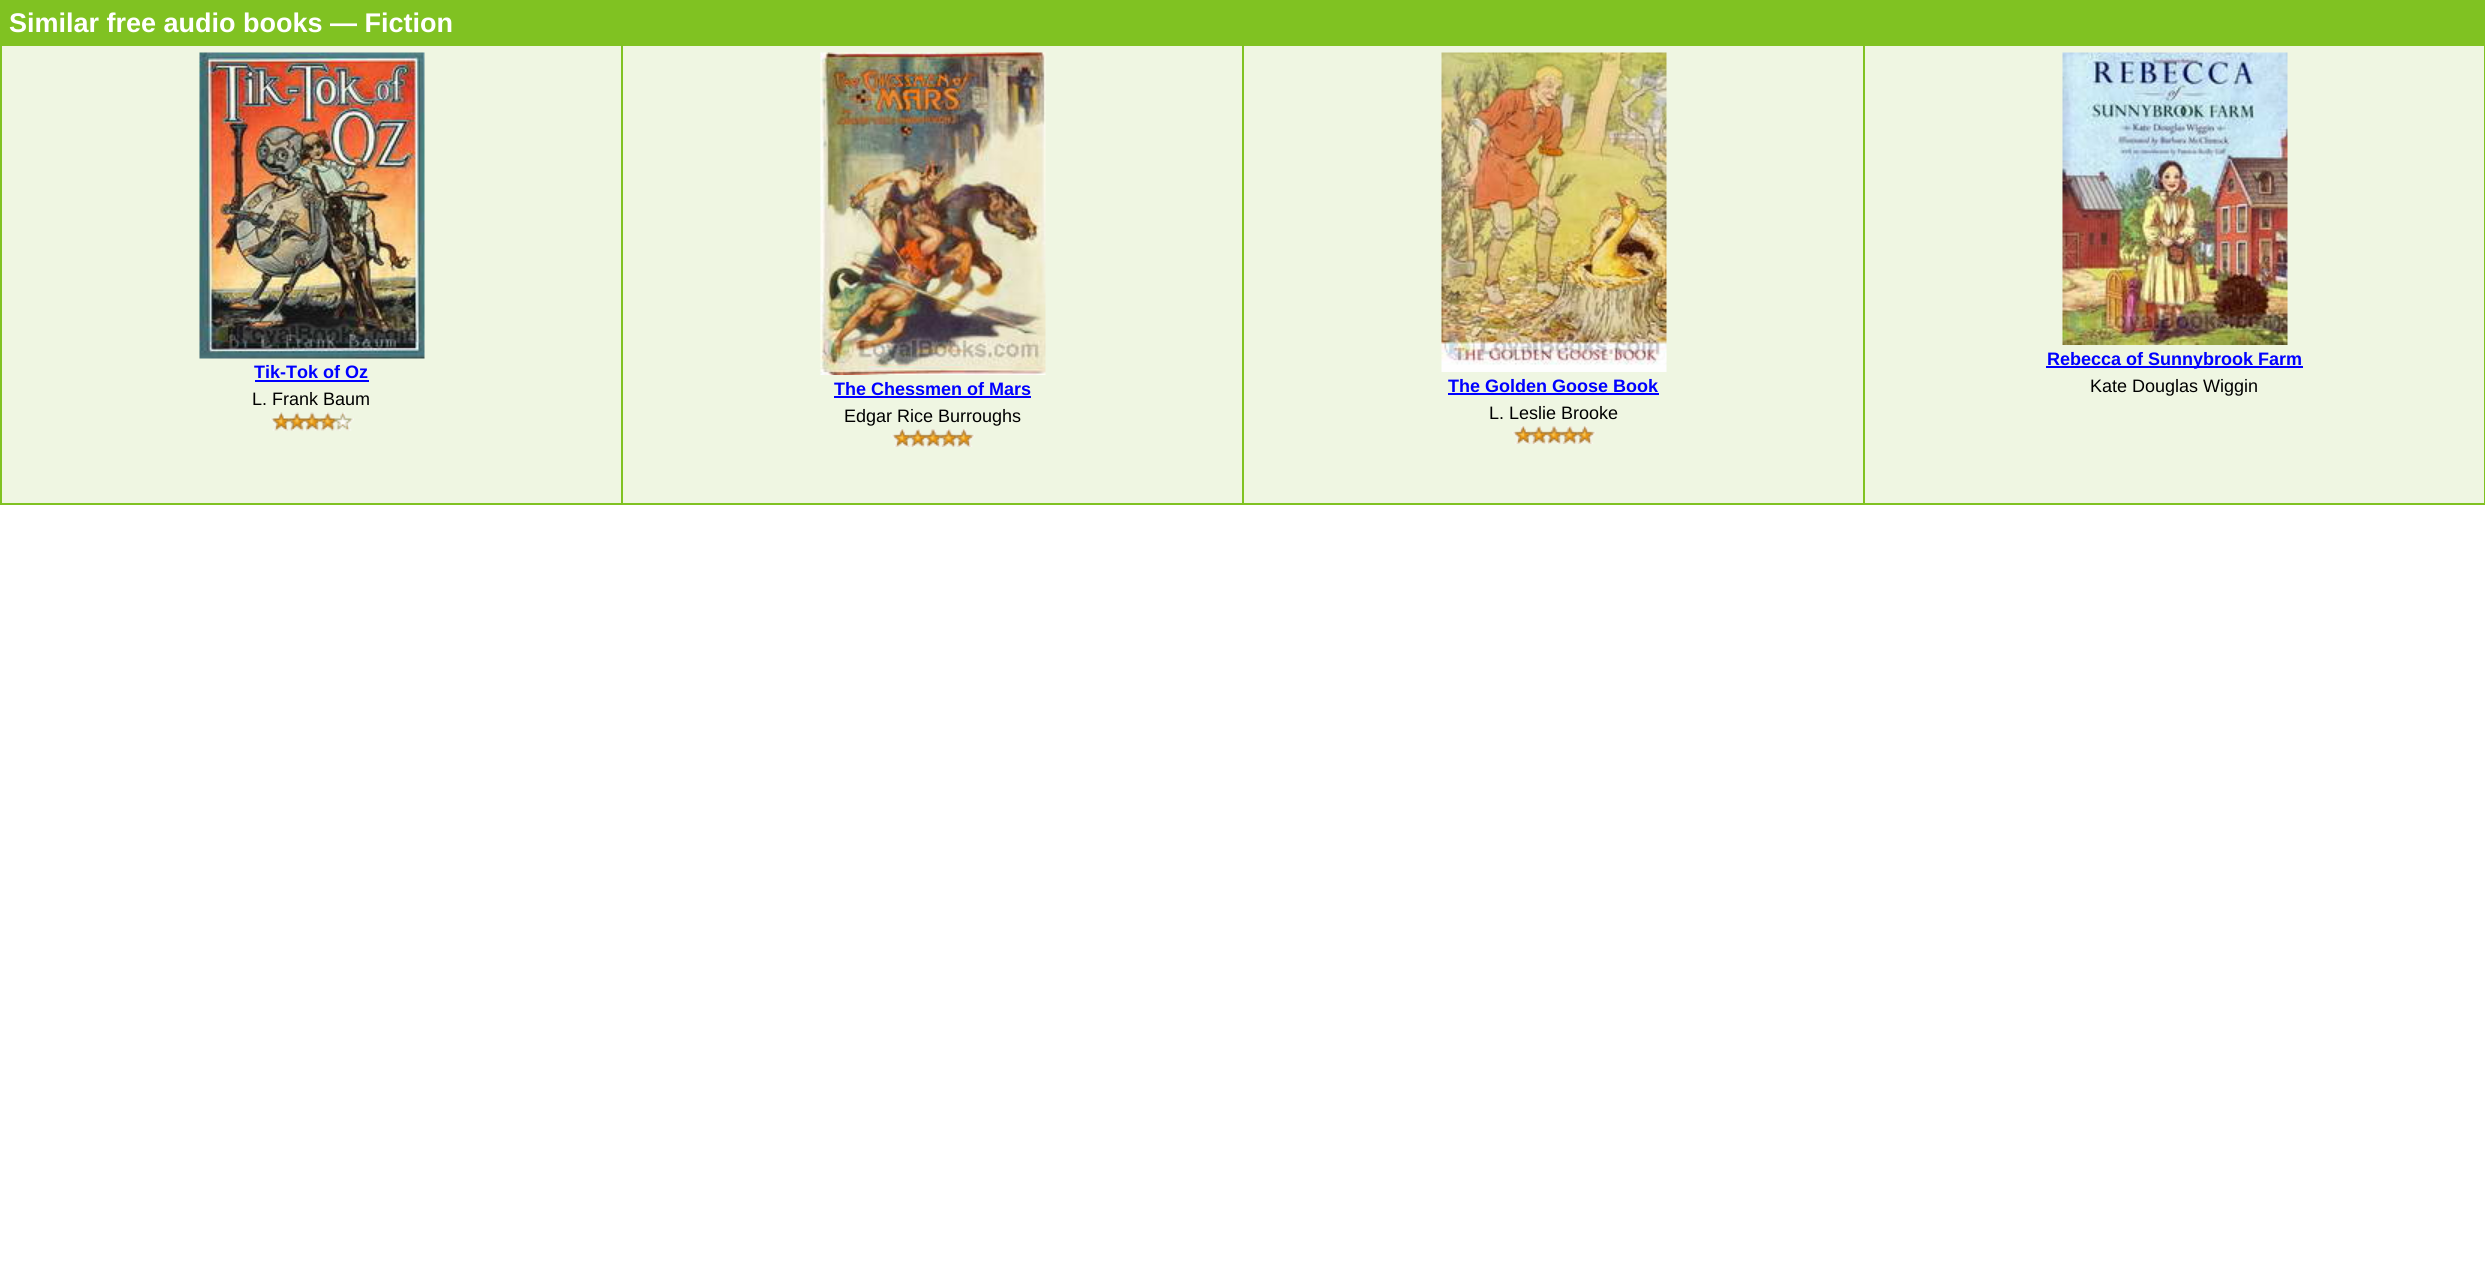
import math
import cairocffi as cairo

surface = cairo.ImageSurface(cairo.FORMAT_RGB24, 2485, 1279)
ctx = cairo.Context(surface)
options = cairo.FontOptions()
options.set_hint_metrics(cairo.HINT_METRICS_OFF)
options.set_hint_style(cairo.HINT_STYLE_NONE)
ctx.set_font_options(options)
ctx.set_miter_limit(4)


def rgb(r, g, b):
    ctx.set_source_rgb(r / 255, g / 255, b / 255)


def face(family, size, italic, bold):
    ctx.select_font_face(family, cairo.FONT_SLANT_ITALIC if italic else cairo.FONT_SLANT_NORMAL, cairo.FONT_WEIGHT_BOLD if bold else cairo.FONT_WEIGHT_NORMAL)
    ctx.set_font_size(size)


def label(x, y, s):
    ctx.move_to(x, y)
    ctx.show_text(s)


def rect(x, y, w, h):
    ctx.rectangle(x, y, w, h)
    ctx.fill()


def image(path, x, y, w, h):
    ctx.save()
    ctx.set_source_surface(cairo.ImageSurface.create_from_png(path), x, y)
    ctx.rectangle(x, y, w, h)
    ctx.fill()
    ctx.restore()


rgb(255, 255, 255)
ctx.paint()
rgb(239, 246, 226)
rect(2, 46, 2482, 457)
rgb(128, 194, 34)
rect(0, 0, 2485, 2)
rect(2484, 0, 1, 504)
rect(0, 503, 2485, 2)
rect(0, 0, 2, 504)
rect(2, 2, 2482, 42)
face('Liberation Sans', 27, 0, 1)
rgb(255, 255, 255)
label(9, 32, 'Similar free audio books — Fiction')
rgb(128, 194, 34)
rect(1863, 44, 622, 2)
rect(1863, 44, 2, 460)
rect(1242, 44, 623, 2)
rect(1242, 44, 2, 460)
rect(621, 44, 623, 2)
rect(621, 44, 2, 460)
rect(0, 44, 623, 2)
image('image0.png', 199, 52, 226, 307)
face('Liberation Sans', 18, 0, 1)
rgb(0, 0, 255)
label(254, 378, 'Tik-Tok of Oz')
rect(255, 380, 114, 2)
face('Liberation Sans', 18, 0, 0)
rgb(0, 0, 0)
label(252, 405, 'L. Frank Baum')
image('image1.png', 270, 412, 84, 19)
image('image2.png', 820, 52, 226, 323)
face('Liberation Sans', 18, 0, 1)
rgb(0, 0, 255)
label(834, 395, 'The Chessmen of Mars')
rect(834, 396, 197, 2)
face('Liberation Sans', 18, 0, 0)
rgb(0, 0, 0)
label(844, 422, 'Edgar Rice Burroughs')
image('image3.png', 891, 429, 84, 18)
image('image4.png', 1441, 52, 226, 320)
face('Liberation Sans', 18, 0, 1)
rgb(0, 0, 255)
label(1448, 392, 'The Golden Goose Book')
rect(1448, 393, 211, 2)
face('Liberation Sans', 18, 0, 0)
rgb(0, 0, 0)
label(1489, 419, 'L. Leslie Brooke')
image('image5.png', 1512, 426, 84, 18)
image('image6.png', 2062, 52, 226, 293)
rgb(0, 0, 255)
rect(2046, 366, 257, 2)
face('Liberation Sans', 18, 0, 1)
label(2047, 365, 'Rebecca of Sunnybrook Farm')
face('Liberation Sans', 18, 0, 0)
rgb(0, 0, 0)
label(2090, 392, 'Kate Douglas Wiggin')
surface.write_to_png('render.png')
